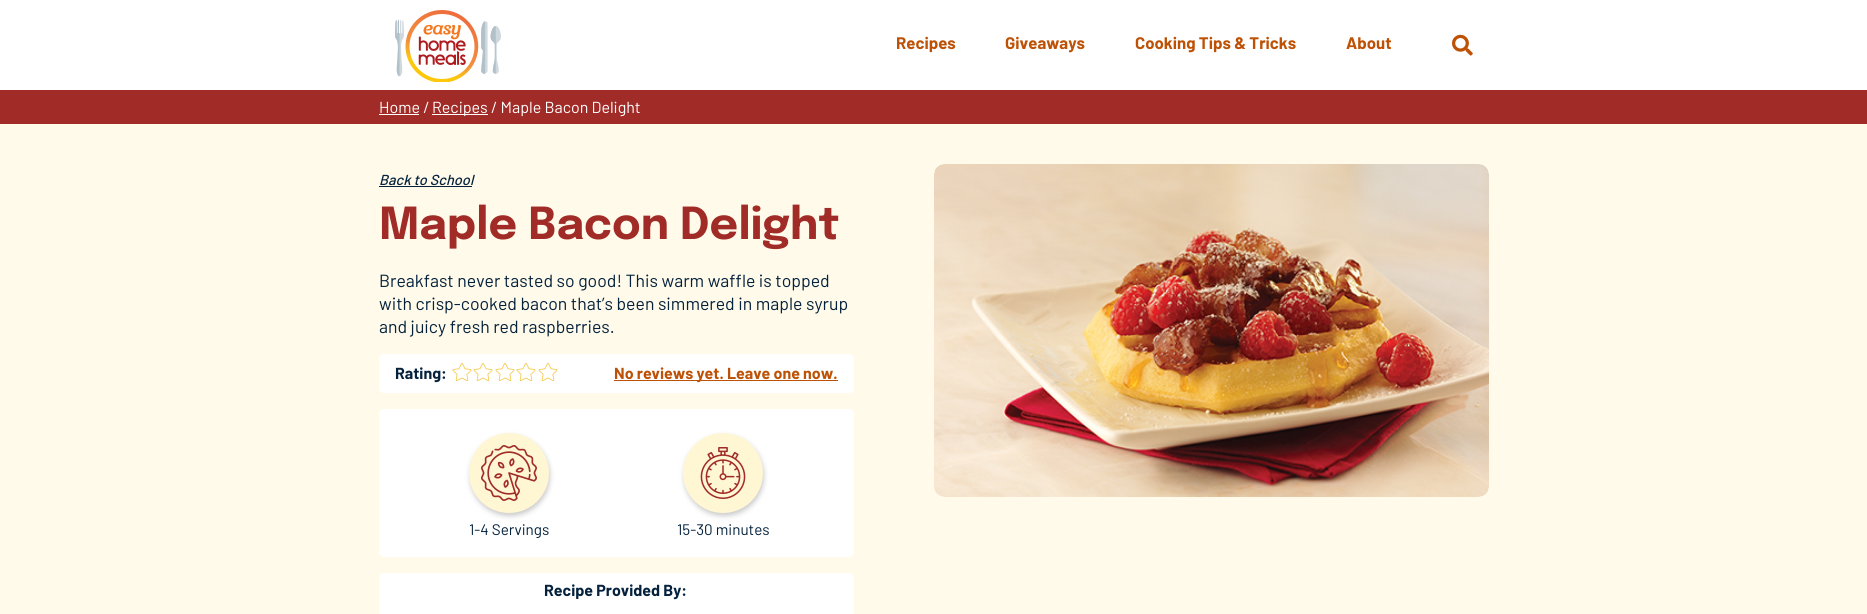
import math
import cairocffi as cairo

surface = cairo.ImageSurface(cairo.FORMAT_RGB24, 1867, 614)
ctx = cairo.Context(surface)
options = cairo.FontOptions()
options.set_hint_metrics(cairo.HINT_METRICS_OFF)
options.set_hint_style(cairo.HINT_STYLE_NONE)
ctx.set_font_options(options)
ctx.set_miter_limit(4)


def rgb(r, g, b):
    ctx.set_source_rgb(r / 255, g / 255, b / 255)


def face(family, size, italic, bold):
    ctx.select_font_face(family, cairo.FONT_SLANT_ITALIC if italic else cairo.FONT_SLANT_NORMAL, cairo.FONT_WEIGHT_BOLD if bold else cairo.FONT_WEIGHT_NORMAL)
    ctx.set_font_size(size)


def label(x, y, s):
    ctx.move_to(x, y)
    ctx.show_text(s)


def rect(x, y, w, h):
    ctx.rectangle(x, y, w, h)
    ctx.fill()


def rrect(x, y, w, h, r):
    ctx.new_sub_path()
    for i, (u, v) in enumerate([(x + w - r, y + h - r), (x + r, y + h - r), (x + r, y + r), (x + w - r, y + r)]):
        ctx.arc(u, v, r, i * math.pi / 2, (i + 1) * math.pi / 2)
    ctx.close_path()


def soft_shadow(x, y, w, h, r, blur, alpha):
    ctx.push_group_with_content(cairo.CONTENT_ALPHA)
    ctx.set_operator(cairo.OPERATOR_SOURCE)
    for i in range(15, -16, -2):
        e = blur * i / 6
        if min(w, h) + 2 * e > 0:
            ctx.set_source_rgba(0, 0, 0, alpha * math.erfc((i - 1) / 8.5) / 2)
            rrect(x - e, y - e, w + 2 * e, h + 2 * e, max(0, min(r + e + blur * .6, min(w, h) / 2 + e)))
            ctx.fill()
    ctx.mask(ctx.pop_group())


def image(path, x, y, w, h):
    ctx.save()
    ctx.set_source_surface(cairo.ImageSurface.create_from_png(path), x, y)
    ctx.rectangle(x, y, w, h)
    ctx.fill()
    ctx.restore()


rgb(255, 255, 255)
ctx.paint()
image('image0.png', 395, 10, 106, 72)
face('Barlow', 16.75, 0, 1)
rgb(189, 81, 5)
label(896, 49, 'Recipes')
label(1005, 49, 'Giveaways')
label(1135, 49, 'Cooking Tips & Tricks')
label(1346, 49, 'About')
image('image1.png', 1452, 34, 21, 22)
rgb(160, 43, 39)
rect(0, 90, 1867, 34)
face('Barlow', 16, 0, 0)
rgb(255, 255, 255)
label(379, 113, 'Home /')
rect(379, 114, 40, 1)
rect(432, 114, 56, 1)
label(432, 113, 'Recipes / Maple Bacon Delight')
rgb(255, 250, 233)
rect(0, 124, 1867, 490)
face('Barlow Medium', 14.5, 1, 0)
rgb(4, 34, 61)
label(379, 185, 'Back to School')
rect(379, 186, 93, 1)
face('Epilogue', 44, 0, 1)
rgb(160, 43, 39)
label(379, 239, 'Maple Bacon Delight')
face('Barlow', 17.6, 0, 0)
rgb(4, 34, 61)
label(379, 287, 'Breakfast never tasted so good! This warm waffle is topped')
label(379, 310, 'with crisp-cooked bacon that’s been simmered in maple syrup')
label(379, 333, 'and juicy fresh red raspberries.')
rgb(255, 255, 255)
rrect(379, 354, 475, 39, 5)
ctx.fill()
face('Barlow', 16, 0, 1)
rgb(4, 34, 61)
label(395, 379, 'Rating:')
image('image2.png', 452, 363, 20, 19)
image('image2.png', 473, 363, 20, 19)
image('image2.png', 495, 363, 20, 19)
image('image2.png', 516, 363, 20, 19)
image('image2.png', 538, 363, 20, 19)
rgb(189, 81, 5)
rect(614, 380, 224, 1)
label(614, 379, 'No reviews yet. Leave one now.')
rgb(255, 255, 255)
rrect(379, 409, 475, 148, 5)
ctx.fill()
rgb(204, 204, 204)
soft_shadow(470, 436, 80, 80, 40, 2.5, 1)
rgb(255, 246, 212)
ctx.arc(509, 473, 40, 0, 2 * math.pi)
ctx.fill()
image('image3.png', 481, 445, 56, 56)
face('Barlow', 15.25, 0, 0)
rgb(4, 34, 61)
label(469, 535, '1-4 Servings')
rgb(204, 204, 204)
soft_shadow(684, 436, 80, 80, 40, 2.5, 1)
rgb(255, 246, 212)
ctx.arc(723, 473, 40, 0, 2 * math.pi)
ctx.fill()
image('image4.png', 700, 447, 46, 52)
rgb(4, 34, 61)
label(677, 535, '15-30 minutes')
rgb(255, 255, 255)
rrect(379, 573, 475, 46, 5)
ctx.fill()
face('Barlow', 16, 0, 1)
rgb(4, 34, 61)
label(544, 596, 'Recipe Provided By:')
image('image5.png', 934, 164, 555, 333)
surface.write_to_png('render.png')
